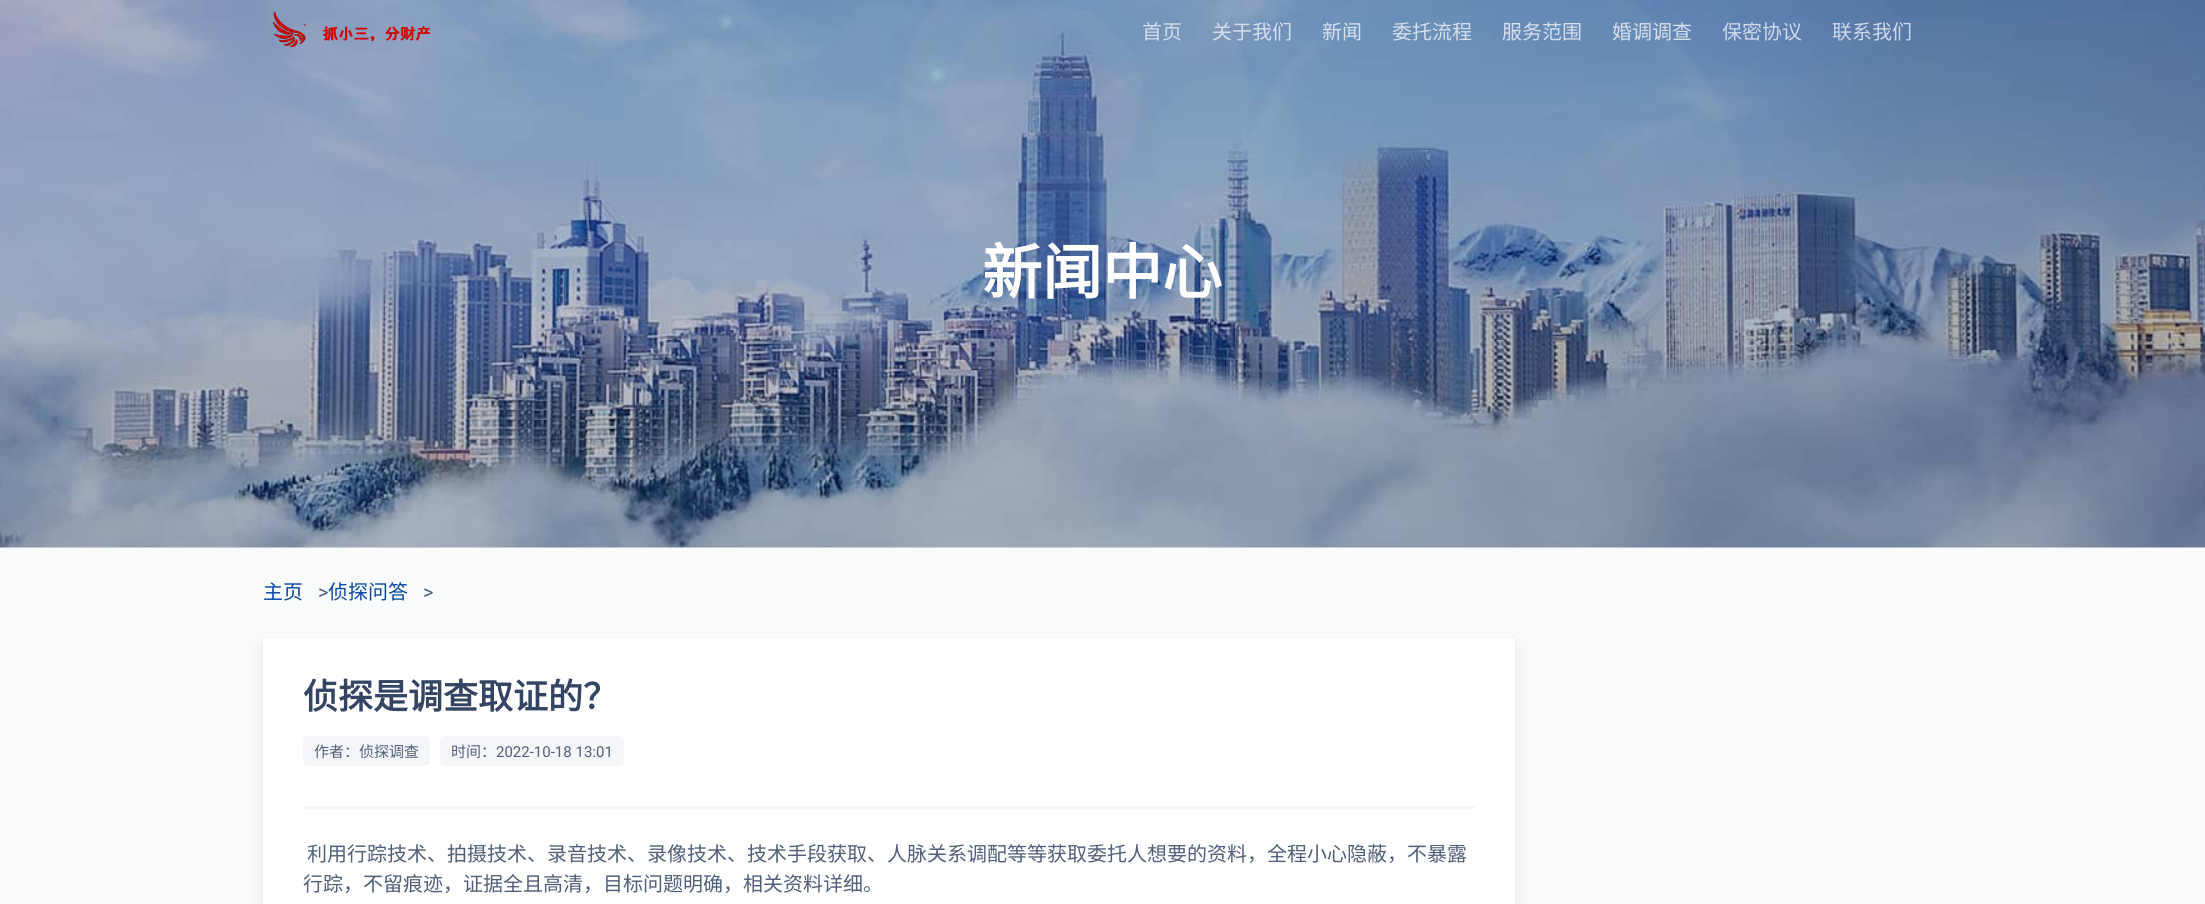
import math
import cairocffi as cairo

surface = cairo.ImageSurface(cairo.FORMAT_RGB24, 2205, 904)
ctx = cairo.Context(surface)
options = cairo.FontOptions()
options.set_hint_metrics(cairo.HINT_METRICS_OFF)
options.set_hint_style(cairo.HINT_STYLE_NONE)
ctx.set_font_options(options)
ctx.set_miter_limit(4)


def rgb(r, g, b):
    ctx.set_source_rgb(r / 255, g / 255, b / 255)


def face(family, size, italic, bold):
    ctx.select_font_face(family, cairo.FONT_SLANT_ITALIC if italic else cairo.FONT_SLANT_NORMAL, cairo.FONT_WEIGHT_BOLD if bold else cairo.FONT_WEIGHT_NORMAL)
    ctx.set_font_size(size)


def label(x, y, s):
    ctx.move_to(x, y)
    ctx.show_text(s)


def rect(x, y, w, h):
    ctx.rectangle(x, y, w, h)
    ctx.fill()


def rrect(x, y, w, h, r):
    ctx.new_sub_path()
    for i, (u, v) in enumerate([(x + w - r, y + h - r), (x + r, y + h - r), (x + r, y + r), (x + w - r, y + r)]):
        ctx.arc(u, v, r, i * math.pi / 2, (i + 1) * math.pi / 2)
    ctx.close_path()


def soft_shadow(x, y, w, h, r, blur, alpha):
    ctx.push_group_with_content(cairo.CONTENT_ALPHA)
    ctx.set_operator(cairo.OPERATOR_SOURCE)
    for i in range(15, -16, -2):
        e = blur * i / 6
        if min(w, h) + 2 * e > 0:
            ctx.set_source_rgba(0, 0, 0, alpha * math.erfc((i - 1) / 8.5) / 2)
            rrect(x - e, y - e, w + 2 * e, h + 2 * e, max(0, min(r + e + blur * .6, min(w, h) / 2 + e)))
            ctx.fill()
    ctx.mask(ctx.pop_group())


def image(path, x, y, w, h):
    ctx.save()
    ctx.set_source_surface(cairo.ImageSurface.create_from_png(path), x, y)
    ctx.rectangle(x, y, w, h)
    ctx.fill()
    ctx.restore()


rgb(250, 251, 252)
ctx.paint()
image('image0.png', 0, 0, 2205, 548)
image('image1.png', 273, 12, 157, 35)
image('image2.png', 273, 12, 157, 35)
face('Noto Sans CJK SC', 20, 0, 0)
rgb(214, 223, 235)
label(1142, 39, '首页')
label(1212, 39, '关于我们')
label(1322, 39, '新闻')
label(1392, 39, '委托流程')
label(1502, 39, '服务范围')
label(1612, 39, '婚调调查')
rgb(207, 217, 232)
label(1722, 39, '保密协议')
label(1832, 39, '联系我们')
face('Noto Sans CJK SC', 60, 0, 1)
rgb(255, 255, 255)
label(982, 294, '新闻中心')
face('Noto Sans CJK SC', 20, 0, 0)
rgb(7, 71, 166)
label(263, 599, '主页')
face('Roboto', 20, 0, 0)
rgb(80, 95, 121)
label(318, 599, '>')
face('Noto Sans CJK SC', 20, 0, 0)
rgb(7, 71, 166)
label(328, 599, '侦探问答')
face('Roboto', 20, 0, 0)
rgb(80, 95, 121)
label(423, 599, '>')
ctx.rectangle(261.5, 636.5, 1254, 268)
rgb(245, 246, 248)
ctx.set_line_width(1)
ctx.stroke()
rgb(3, 16, 39)
soft_shadow(265, 650, 1248, 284, 0, 10, 0.1)
rgb(255, 255, 255)
rect(263, 638, 1252, 266)
face('Noto Sans CJK SC', 35, 0, 1)
rgb(52, 69, 99)
label(303, 709, '侦探是调查取证的？')
rgb(245, 246, 249)
rrect(303, 736, 127, 30, 5)
ctx.fill()
face('Noto Sans CJK SC', 15, 0, 0)
rgb(80, 95, 121)
label(314, 757, '作者：侦探调查')
rgb(245, 246, 249)
rrect(440, 736, 184, 30, 5)
ctx.fill()
rgb(80, 95, 121)
label(451, 757, '时间：')
face('Roboto', 15, 0, 0)
label(496, 757, '2022-10-18 13:01')
rgb(245, 246, 249)
rect(303, 806, 1172, 3)
face('Noto Sans CJK SC', 20, 0, 0)
rgb(80, 95, 121)
label(307, 861, '利用行踪技术、拍摄技术、录音技术、录像技术、技术手段获取、人脉关系调配等等获取委托人想要的资料，全程小心隐蔽，不暴露')
label(303, 891, '行踪，不留痕迹，证据全且高清，目标问题明确，相关资料详细。')
surface.write_to_png('render.png')
